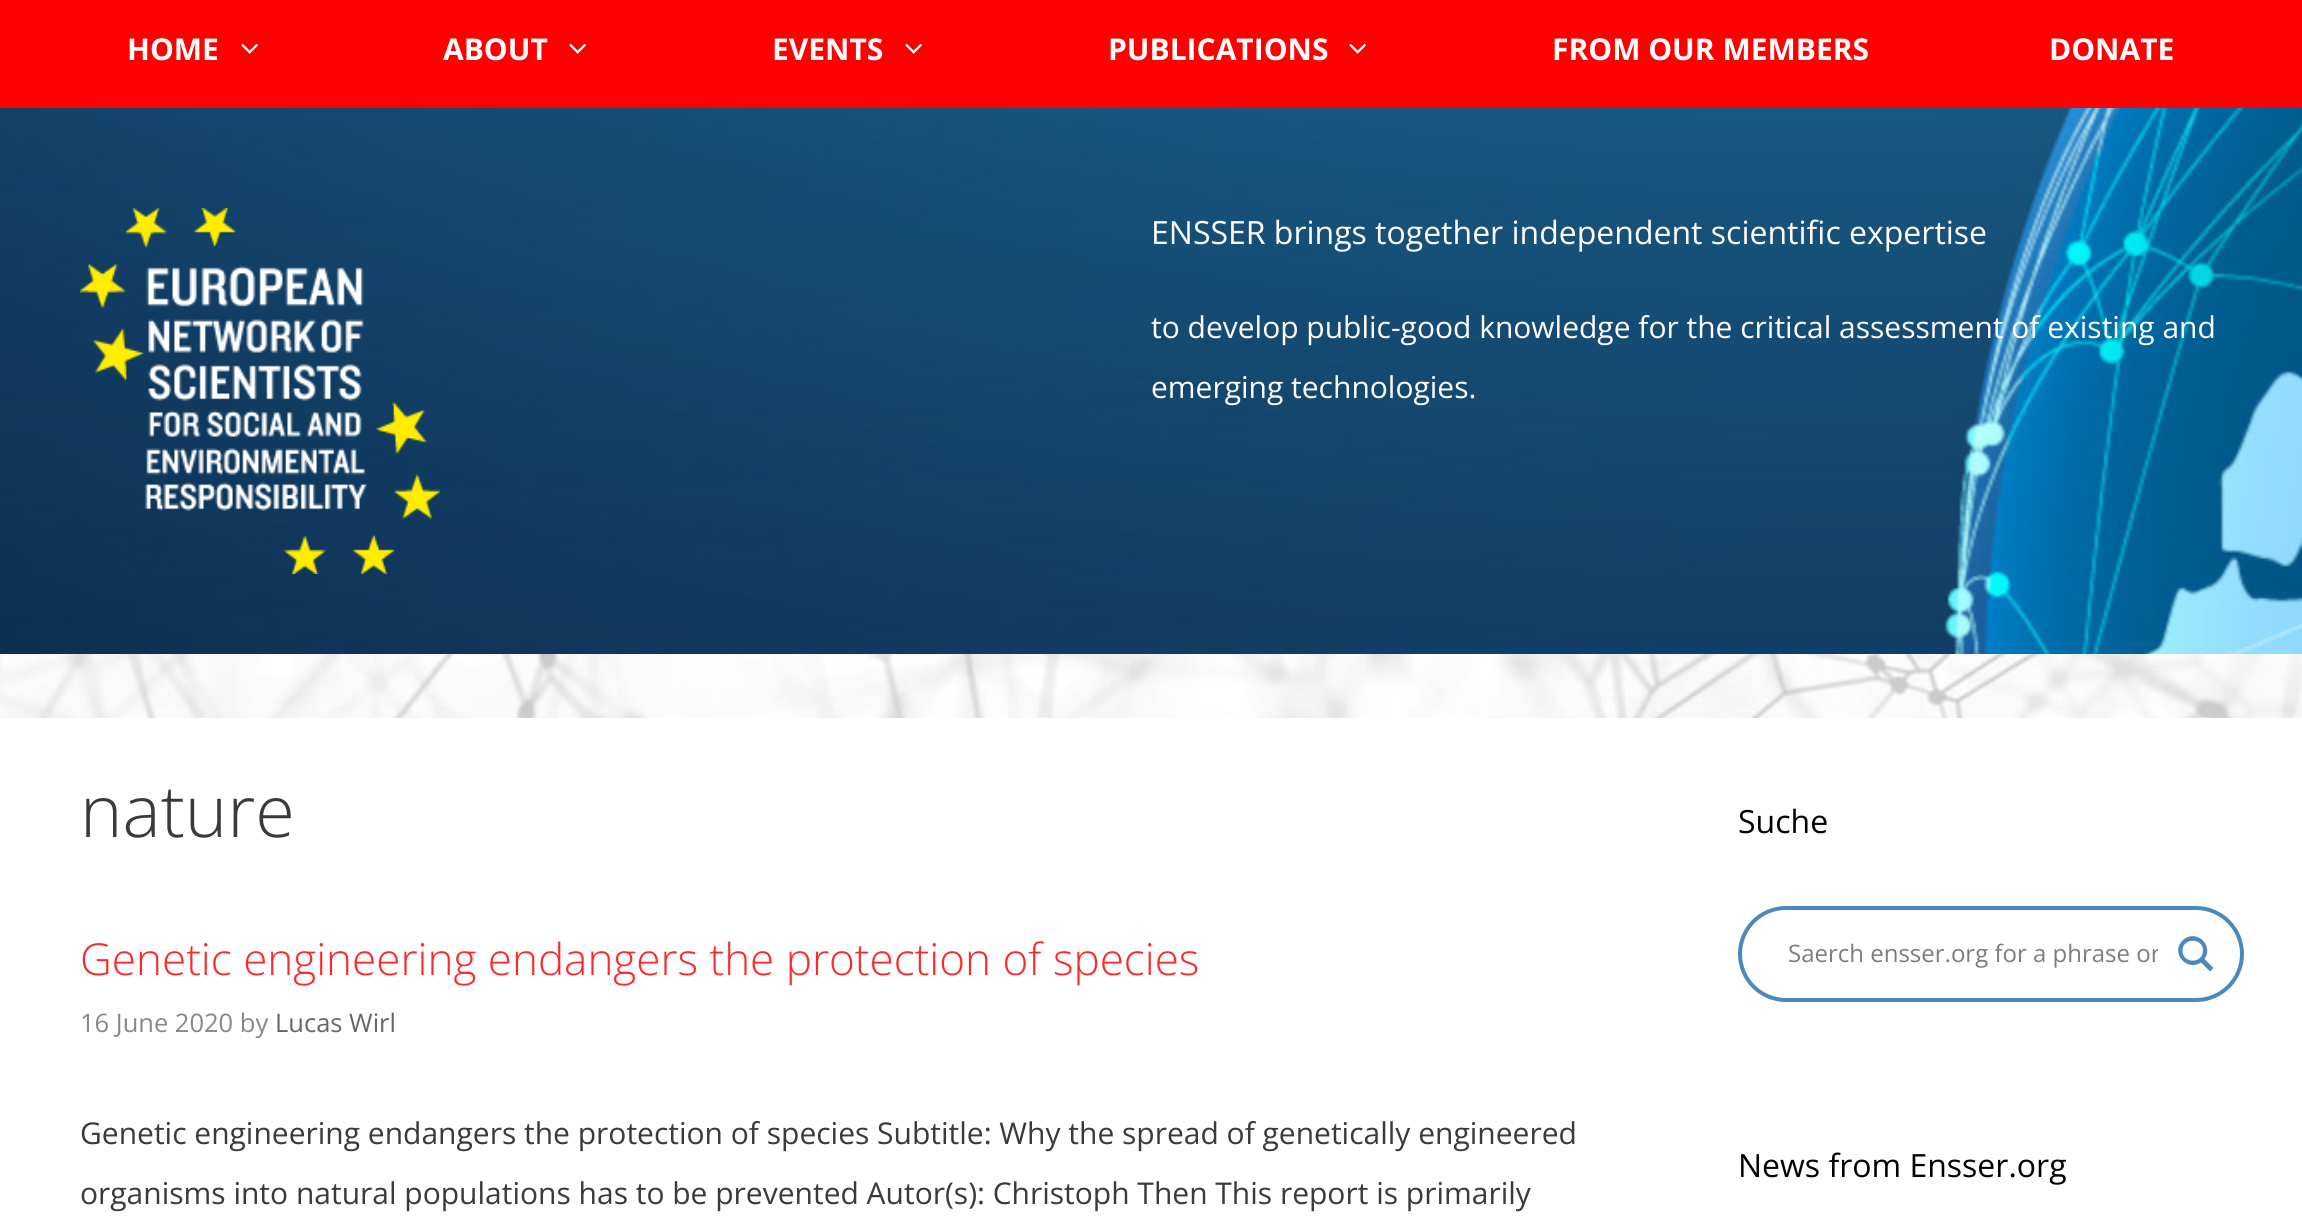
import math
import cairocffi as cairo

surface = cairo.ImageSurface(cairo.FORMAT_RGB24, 2302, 1217)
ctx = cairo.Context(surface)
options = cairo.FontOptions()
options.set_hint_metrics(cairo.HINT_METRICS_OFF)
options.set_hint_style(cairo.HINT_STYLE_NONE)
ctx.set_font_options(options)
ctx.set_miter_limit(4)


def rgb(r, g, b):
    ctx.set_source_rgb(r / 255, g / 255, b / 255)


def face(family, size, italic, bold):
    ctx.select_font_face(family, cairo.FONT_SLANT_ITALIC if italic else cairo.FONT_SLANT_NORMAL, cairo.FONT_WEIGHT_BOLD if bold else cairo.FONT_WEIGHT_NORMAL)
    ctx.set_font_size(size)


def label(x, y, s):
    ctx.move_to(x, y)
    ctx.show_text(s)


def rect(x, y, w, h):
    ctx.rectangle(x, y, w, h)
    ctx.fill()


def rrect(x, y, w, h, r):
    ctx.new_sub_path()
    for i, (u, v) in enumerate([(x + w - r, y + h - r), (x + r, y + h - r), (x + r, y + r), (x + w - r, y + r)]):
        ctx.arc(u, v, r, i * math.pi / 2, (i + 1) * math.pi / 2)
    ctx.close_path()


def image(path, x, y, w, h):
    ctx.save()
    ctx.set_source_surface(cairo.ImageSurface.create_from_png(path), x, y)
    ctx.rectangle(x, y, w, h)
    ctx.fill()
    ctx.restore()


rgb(255, 255, 255)
ctx.paint()
image('image0.png', 0, 654, 2302, 64)
rgb(255, 0, 0)
rect(0, 0, 2302, 108)
face('Open Sans', 30, 0, 1)
rgb(255, 255, 255)
label(127, 60, 'HOME')
image('image1.png', 241, 43, 17, 11)
label(443, 60, 'ABOUT')
image('image1.png', 569, 43, 17, 11)
label(772, 60, 'EVENTS')
image('image1.png', 905, 43, 17, 11)
label(1108, 60, 'PUBLICATIONS')
image('image1.png', 1349, 43, 17, 11)
label(1552, 60, 'FROM OUR MEMBERS')
label(2049, 60, 'DONATE')
image('image2.png', 0, 108, 2302, 546)
image('image3.png', 80, 208, 360, 366)
face('Open Sans', 32, 0, 0)
label(1151, 244, 'ENSSER brings together independent scientific expertise')
face('Open Sans', 30, 0, 0)
label(1151, 338, 'to develop public-good knowledge for the critical assessment of existing and')
label(1151, 398, 'emerging technologies.')
face('Open Sans Light', 72, 0, 0)
rgb(58, 58, 58)
label(80, 837, 'nature')
face('Open Sans Light', 44, 0, 0)
rgb(255, 40, 40)
label(80, 975, 'Genetic engineering endangers the protection of species')
face('Open Sans', 25.5, 0, 0)
rgb(136, 136, 136)
label(80, 1032, '16 June 2020 by')
rgb(102, 102, 102)
label(275, 1032, 'Lucas Wirl')
face('Open Sans', 30, 0, 0)
rgb(58, 58, 58)
label(80, 1144, 'Genetic engineering endangers the protection of species Subtitle: Why the spread of genetically engineered')
label(80, 1204, 'organisms into natural populations has to be prevented Autor(s): Christoph Then This report is primarily')
face('Open Sans', 32, 0, 0)
rgb(0, 0, 0)
label(1738, 833, 'Suche')
rrect(1740, 908, 502, 92, 46)
rgb(74, 137, 191)
ctx.set_line_width(4)
ctx.stroke()
ctx.save()
ctx.rectangle(1788, 936, 370, 34)
ctx.clip()
face('Open Sans', 24, 0, 0)
rgb(125, 125, 125)
label(1788, 962, 'Saerch ensser.org for a phrase or')
ctx.restore()
ctx.new_path()
ctx.move_to(2213.5, 968)
ctx.line_to(2204.5, 959)
ctx.curve_to(2214.5, 945, 2195.5, 928, 2182.5, 940.5)
ctx.curve_to(2170, 953, 2187, 972, 2201, 962.5)
ctx.line_to(2210, 971.5)
ctx.close_path()
ctx.move_to(2182.5, 950.5)
ctx.curve_to(2182.5, 937.5, 2203, 937.5, 2203, 950.5)
ctx.curve_to(2203, 964, 2182.5, 964, 2182.5, 950.5)
ctx.close_path()
ctx.fill()
rgb(0, 0, 0)
label(1738, 1177, 'News from Ensser.org')
surface.write_to_png('render.png')
